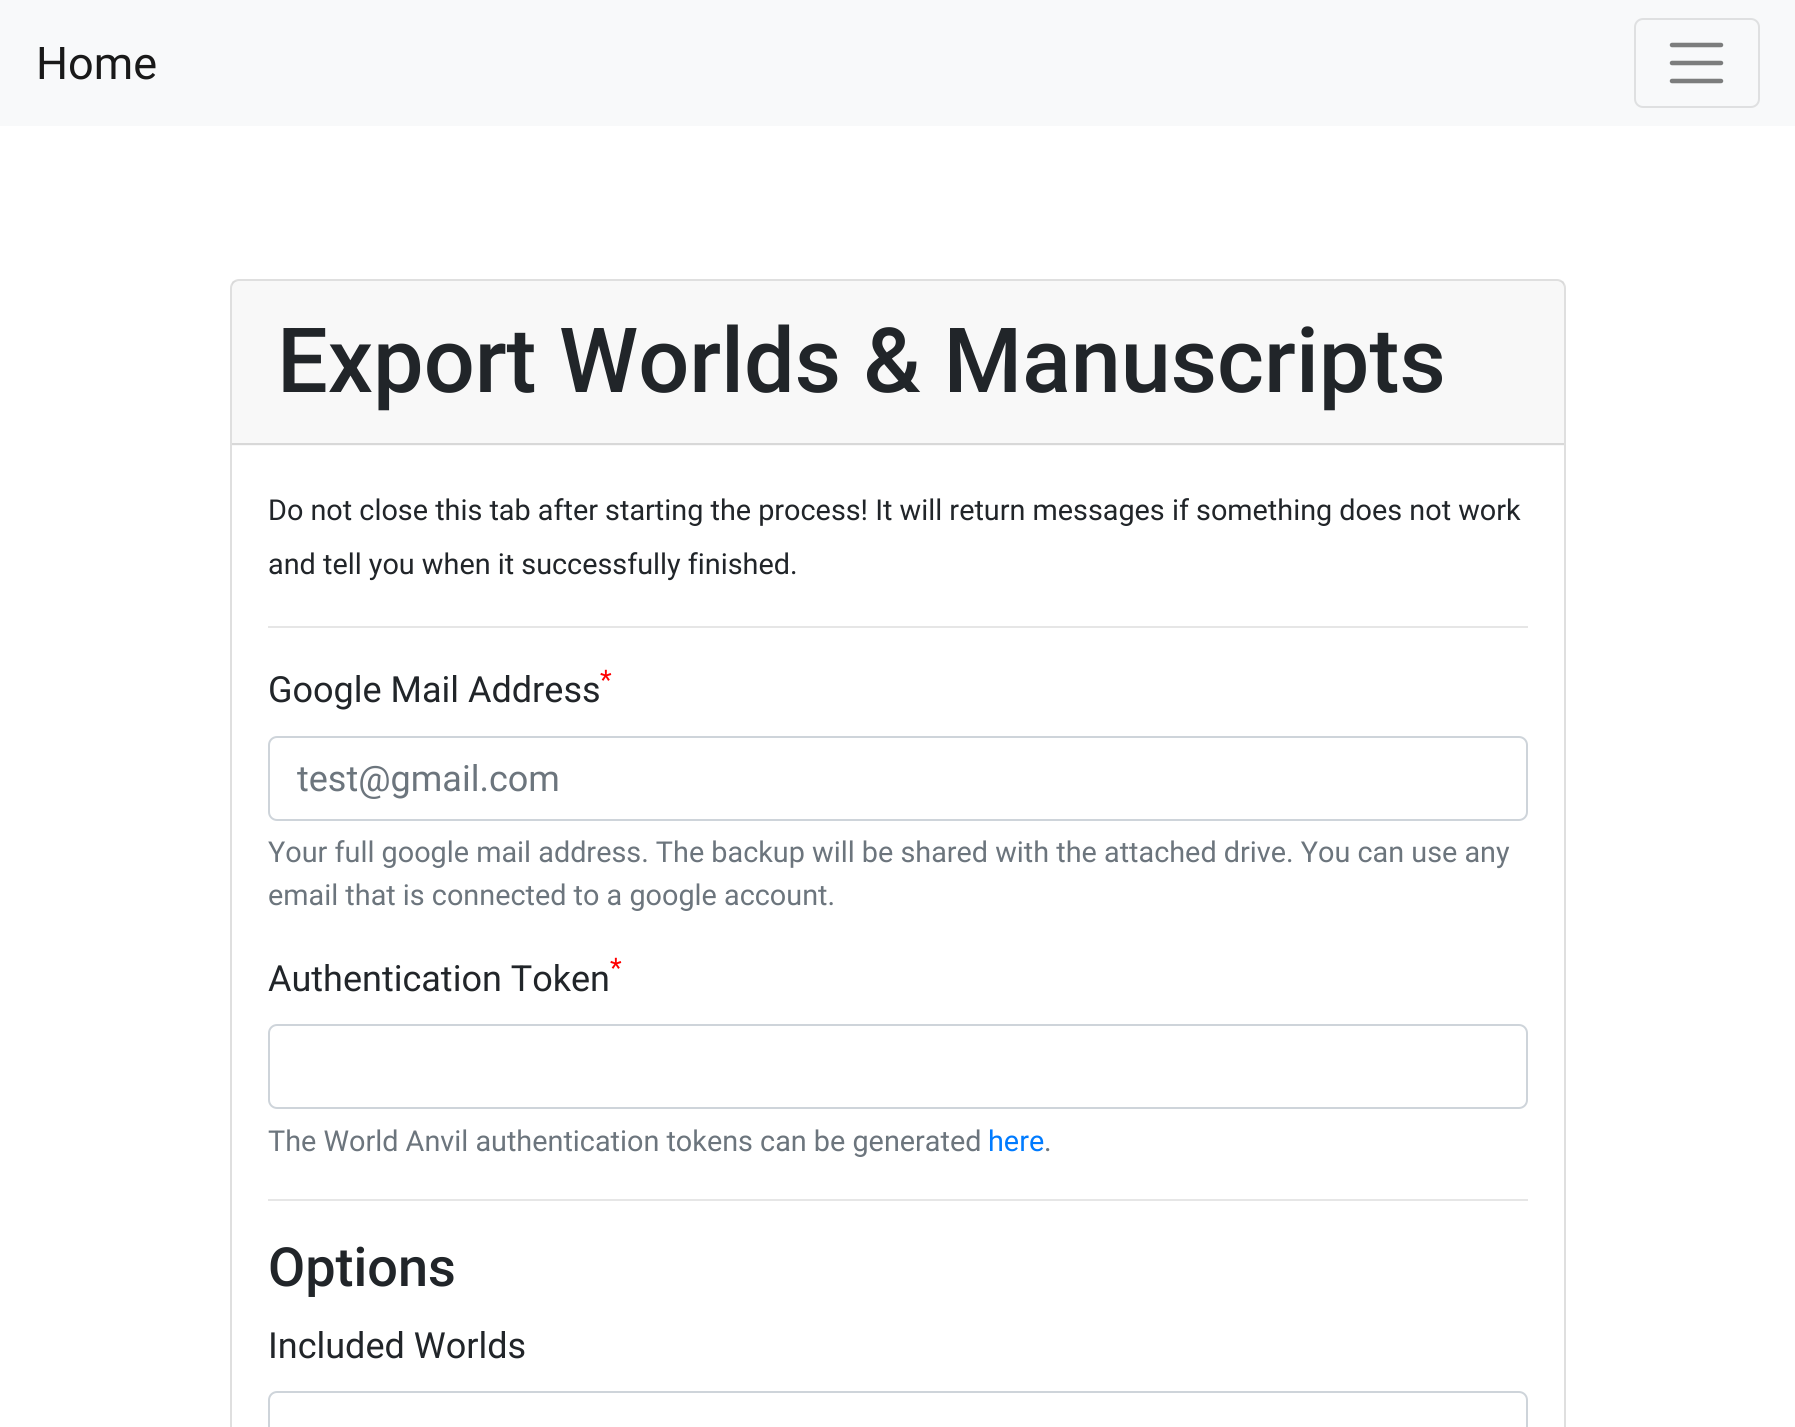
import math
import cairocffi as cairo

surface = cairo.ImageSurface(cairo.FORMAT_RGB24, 1795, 1427)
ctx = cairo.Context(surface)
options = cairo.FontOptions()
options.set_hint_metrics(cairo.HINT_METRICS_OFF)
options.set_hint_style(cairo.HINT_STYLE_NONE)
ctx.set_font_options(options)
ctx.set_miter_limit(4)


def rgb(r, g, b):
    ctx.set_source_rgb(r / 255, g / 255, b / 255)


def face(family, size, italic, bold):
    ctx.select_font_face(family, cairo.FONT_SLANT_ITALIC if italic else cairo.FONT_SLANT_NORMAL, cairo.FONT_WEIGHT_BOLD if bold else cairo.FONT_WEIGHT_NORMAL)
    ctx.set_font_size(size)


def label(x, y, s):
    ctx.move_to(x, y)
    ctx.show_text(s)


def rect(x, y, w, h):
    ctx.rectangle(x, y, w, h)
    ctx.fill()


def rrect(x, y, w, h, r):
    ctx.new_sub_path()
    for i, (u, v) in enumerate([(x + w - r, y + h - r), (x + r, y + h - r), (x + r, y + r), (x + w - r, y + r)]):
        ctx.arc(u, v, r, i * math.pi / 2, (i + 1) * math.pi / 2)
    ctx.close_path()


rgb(255, 255, 255)
ctx.paint()
rgb(248, 249, 250)
rect(0, 0, 1795, 126)
face('Roboto', 45, 0, 0)
rgb(25, 25, 25)
label(36, 79, 'Home')
rrect(1635, 19, 124, 88, 8)
rgb(223, 224, 225)
ctx.stroke()
ctx.new_path()
ctx.move_to(1672, 45)
ctx.line_to(1721, 45)
ctx.move_to(1672, 63)
ctx.line_to(1721, 63)
ctx.move_to(1672, 81)
ctx.line_to(1721, 81)
rgb(124, 125, 125)
ctx.set_line_width(4.5)
ctx.set_line_cap(cairo.LINE_CAP_ROUND)
ctx.stroke()
rrect(231, 280, 1334, 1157, 8)
rgb(223, 223, 223)
ctx.set_line_width(2)
ctx.set_line_cap(cairo.LINE_CAP_BUTT)
ctx.stroke()
ctx.set_source_rgba(0, 0, 0, 0.03)
rect(232, 281, 1332, 165)
rgb(216, 216, 216)
rect(232, 443, 1332, 2)
face('Roboto Medium', 90, 0, 0)
rgb(33, 37, 41)
label(277, 392, 'Export Worlds & Manuscripts')
face('Roboto', 28.8, 0, 0)
label(268, 520, 'Do not close this tab after starting the process! It will return messages if something does not work')
label(268, 574, 'and tell you when it successfully finished.')
rgb(230, 230, 230)
rect(268, 626, 1260, 2)
face('Roboto', 36, 0, 0)
rgb(33, 37, 41)
label(268, 702, 'Google Mail Address')
face('Roboto', 27, 0, 0)
rgb(255, 0, 0)
label(600, 689, '*')
rrect(269, 737, 1258, 83, 8)
rgb(206, 212, 218)
ctx.stroke()
face('Roboto', 36, 0, 0)
rgb(108, 117, 125)
label(297, 791, 'test@gmail.com')
face('Roboto', 28.8, 0, 0)
label(268, 862, 'Your full google mail address. The backup will be shared with the attached drive. You can use any')
label(268, 905, 'email that is connected to a google account.')
face('Roboto', 36, 0, 0)
rgb(33, 37, 41)
label(268, 991, 'Authentication Token')
face('Roboto', 27, 0, 0)
rgb(255, 0, 0)
label(610, 977, '*')
rrect(269, 1025, 1258, 83, 8)
rgb(206, 212, 218)
ctx.stroke()
face('Roboto', 28.8, 0, 0)
rgb(108, 117, 125)
label(268, 1151, 'The World Anvil authentication tokens can be generated')
rgb(0, 123, 255)
label(988, 1151, 'here')
rgb(108, 117, 125)
label(1044, 1151, '.')
rgb(230, 230, 230)
rect(268, 1199, 1260, 2)
face('Roboto Medium', 54, 0, 0)
rgb(33, 37, 41)
label(268, 1286, 'Options')
face('Roboto', 36, 0, 0)
label(268, 1358, 'Included Worlds')
rrect(269, 1392, 1258, 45, 8)
rgb(206, 212, 218)
ctx.stroke()
surface.write_to_png('render.png')
